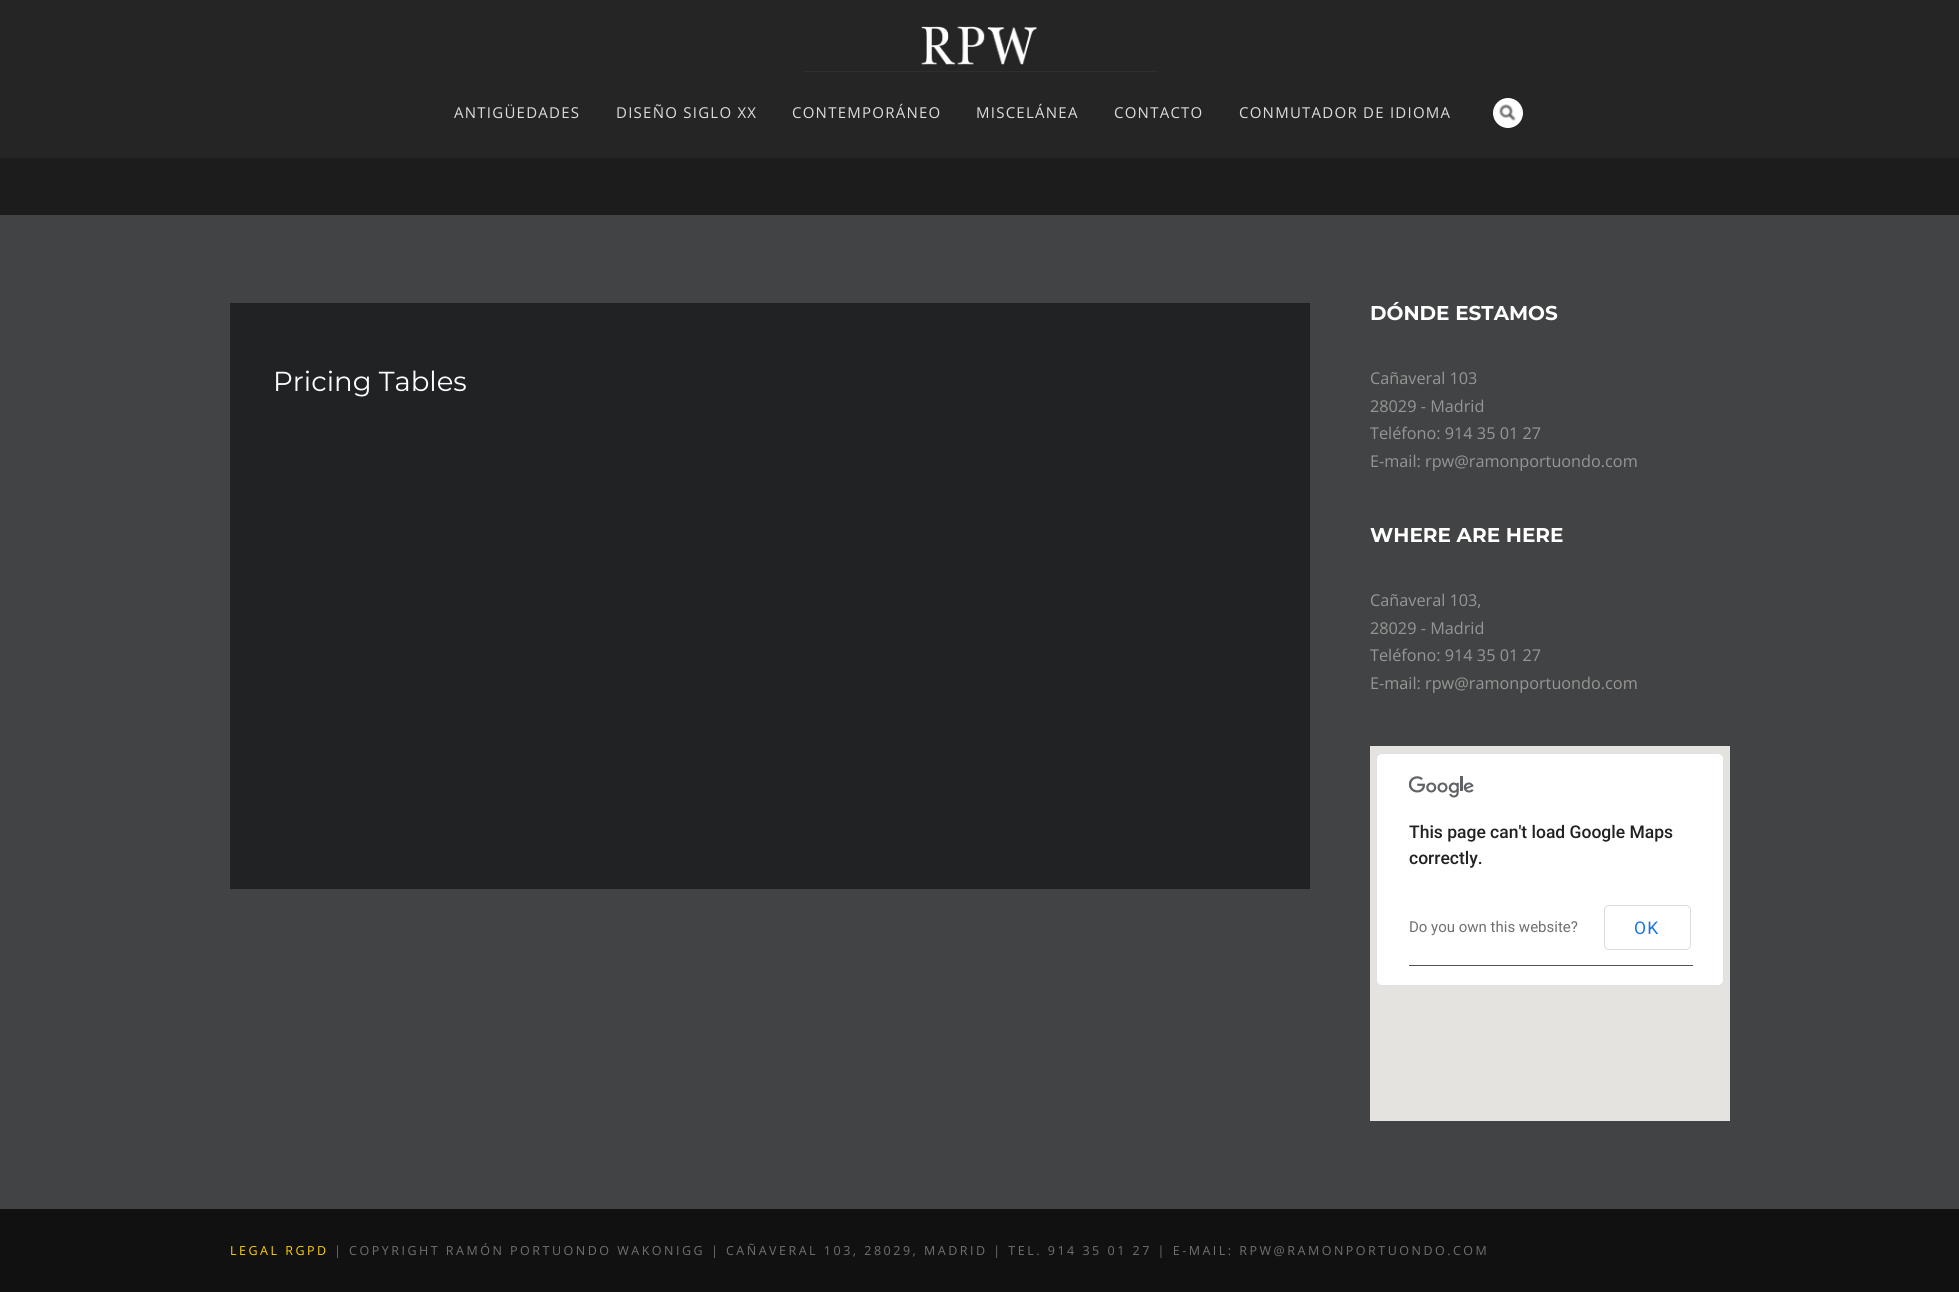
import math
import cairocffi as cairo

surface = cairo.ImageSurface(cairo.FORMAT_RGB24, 1959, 1292)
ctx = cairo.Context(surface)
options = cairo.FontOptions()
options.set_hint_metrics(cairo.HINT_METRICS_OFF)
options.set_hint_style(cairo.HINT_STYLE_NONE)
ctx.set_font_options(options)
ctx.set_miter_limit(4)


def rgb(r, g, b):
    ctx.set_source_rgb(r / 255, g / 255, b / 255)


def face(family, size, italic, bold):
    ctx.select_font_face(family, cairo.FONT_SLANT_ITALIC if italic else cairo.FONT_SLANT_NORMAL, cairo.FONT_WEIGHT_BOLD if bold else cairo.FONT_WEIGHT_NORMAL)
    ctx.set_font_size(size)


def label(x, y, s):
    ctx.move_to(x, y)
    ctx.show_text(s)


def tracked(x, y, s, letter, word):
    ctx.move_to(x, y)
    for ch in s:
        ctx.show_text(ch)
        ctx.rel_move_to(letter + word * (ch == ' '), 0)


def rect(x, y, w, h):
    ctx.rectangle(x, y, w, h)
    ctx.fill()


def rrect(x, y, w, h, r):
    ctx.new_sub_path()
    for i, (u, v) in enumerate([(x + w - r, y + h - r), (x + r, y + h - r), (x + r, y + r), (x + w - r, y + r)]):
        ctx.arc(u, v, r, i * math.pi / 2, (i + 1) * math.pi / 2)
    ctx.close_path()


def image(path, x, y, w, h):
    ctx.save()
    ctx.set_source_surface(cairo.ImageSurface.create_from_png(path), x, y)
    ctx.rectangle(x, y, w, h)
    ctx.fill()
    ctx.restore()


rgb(66, 67, 68)
ctx.paint()
rgb(28, 28, 28)
rect(0, 158, 1959, 57)
rgb(37, 37, 37)
rect(0, 0, 1959, 158)
rgb(46, 46, 46)
rect(803, 71, 355, 1)
image('image0.png', 921, 26, 116, 39)
face('Open Sans', 15, 0, 0)
rgb(221, 221, 221)
tracked(454, 118, 'ANTIGÜEDADES', 1.25, 0)
tracked(616, 118, 'DISEÑO SIGLO XX', 1.25, 0)
tracked(792, 118, 'CONTEMPORÁNEO', 1.25, 0)
tracked(976, 118, 'MISCELÁNEA', 1.25, 0)
tracked(1114, 118, 'CONTACTO', 1.25, 0)
tracked(1239, 118, 'CONMUTADOR DE IDIOMA', 1.25, 0)
rgb(255, 255, 255)
ctx.new_path()
ctx.arc(1508, 113, 15, 0, 2 * math.pi)
ctx.fill()
image('image1.png', 1499, 104, 17, 17)
rgb(32, 34, 35)
rect(230, 303, 1080, 586)
face('Montserrat', 27.5, 0, 0)
rgb(255, 255, 255)
label(273, 391, 'Pricing Tables')
face('Montserrat', 20, 0, 1)
label(1370, 320, 'DÓNDE ESTAMOS')
face('Open Sans', 16.25, 0, 0)
rgb(150, 150, 150)
label(1370, 384, 'Cañaveral 103')
label(1370, 412, '28029 - Madrid')
label(1370, 439, 'Teléfono: 914 35 01 27')
label(1370, 467, 'E-mail: rpw@ramonportuondo.com')
face('Montserrat', 20, 0, 1)
rgb(255, 255, 255)
label(1370, 542, 'WHERE ARE HERE')
face('Open Sans', 16.25, 0, 0)
rgb(150, 150, 150)
label(1370, 606, 'Cañaveral 103,')
label(1370, 634, '28029 - Madrid')
label(1370, 661, 'Teléfono: 914 35 01 27')
label(1370, 689, 'E-mail: rpw@ramonportuondo.com')
rgb(229, 227, 223)
rect(1370, 746, 360, 375)
rgb(255, 255, 255)
rrect(1376, 753, 348, 233, 6)
ctx.fill()
rrect(1376.5, 753.5, 347, 232, 5.5)
ctx.set_source_rgba(0, 0, 0, 0.12)
ctx.set_line_width(1)
ctx.stroke()
image('image2.png', 1409, 776, 65, 22)
face('Roboto Medium', 17.5, 0, 0)
rgb(33, 33, 33)
label(1409, 838, 'This page can\'t load Google Maps')
label(1409, 864, 'correctly.')
rgb(84, 84, 84)
rect(1409, 965, 284, 1)
face('Roboto', 15, 0, 0)
rgb(112, 112, 112)
label(1409, 932, 'Do you own this website?')
rrect(1604.5, 905.5, 86, 44, 4.5)
rgb(218, 220, 224)
ctx.stroke()
face('Roboto', 17.5, 0, 0)
rgb(26, 115, 232)
tracked(1634, 934, 'OK', 1.25, 0)
rgb(17, 17, 17)
rect(0, 1209, 1959, 83)
face('Open Sans', 12.5, 0, 0)
rgb(253, 210, 0)
tracked(230, 1255, 'LEGAL RGPD', 2.5, 0)
rgb(112, 112, 112)
tracked(334, 1255, '| COPYRIGHT RAMÓN PORTUONDO WAKONIGG | CAÑAVERAL 103, 28029, MADRID | TEL. 914 35 01 27 | E-MAIL: RPW@RAMONPORTUONDO.COM', 2.5, 0)
surface.write_to_png('render.png')
